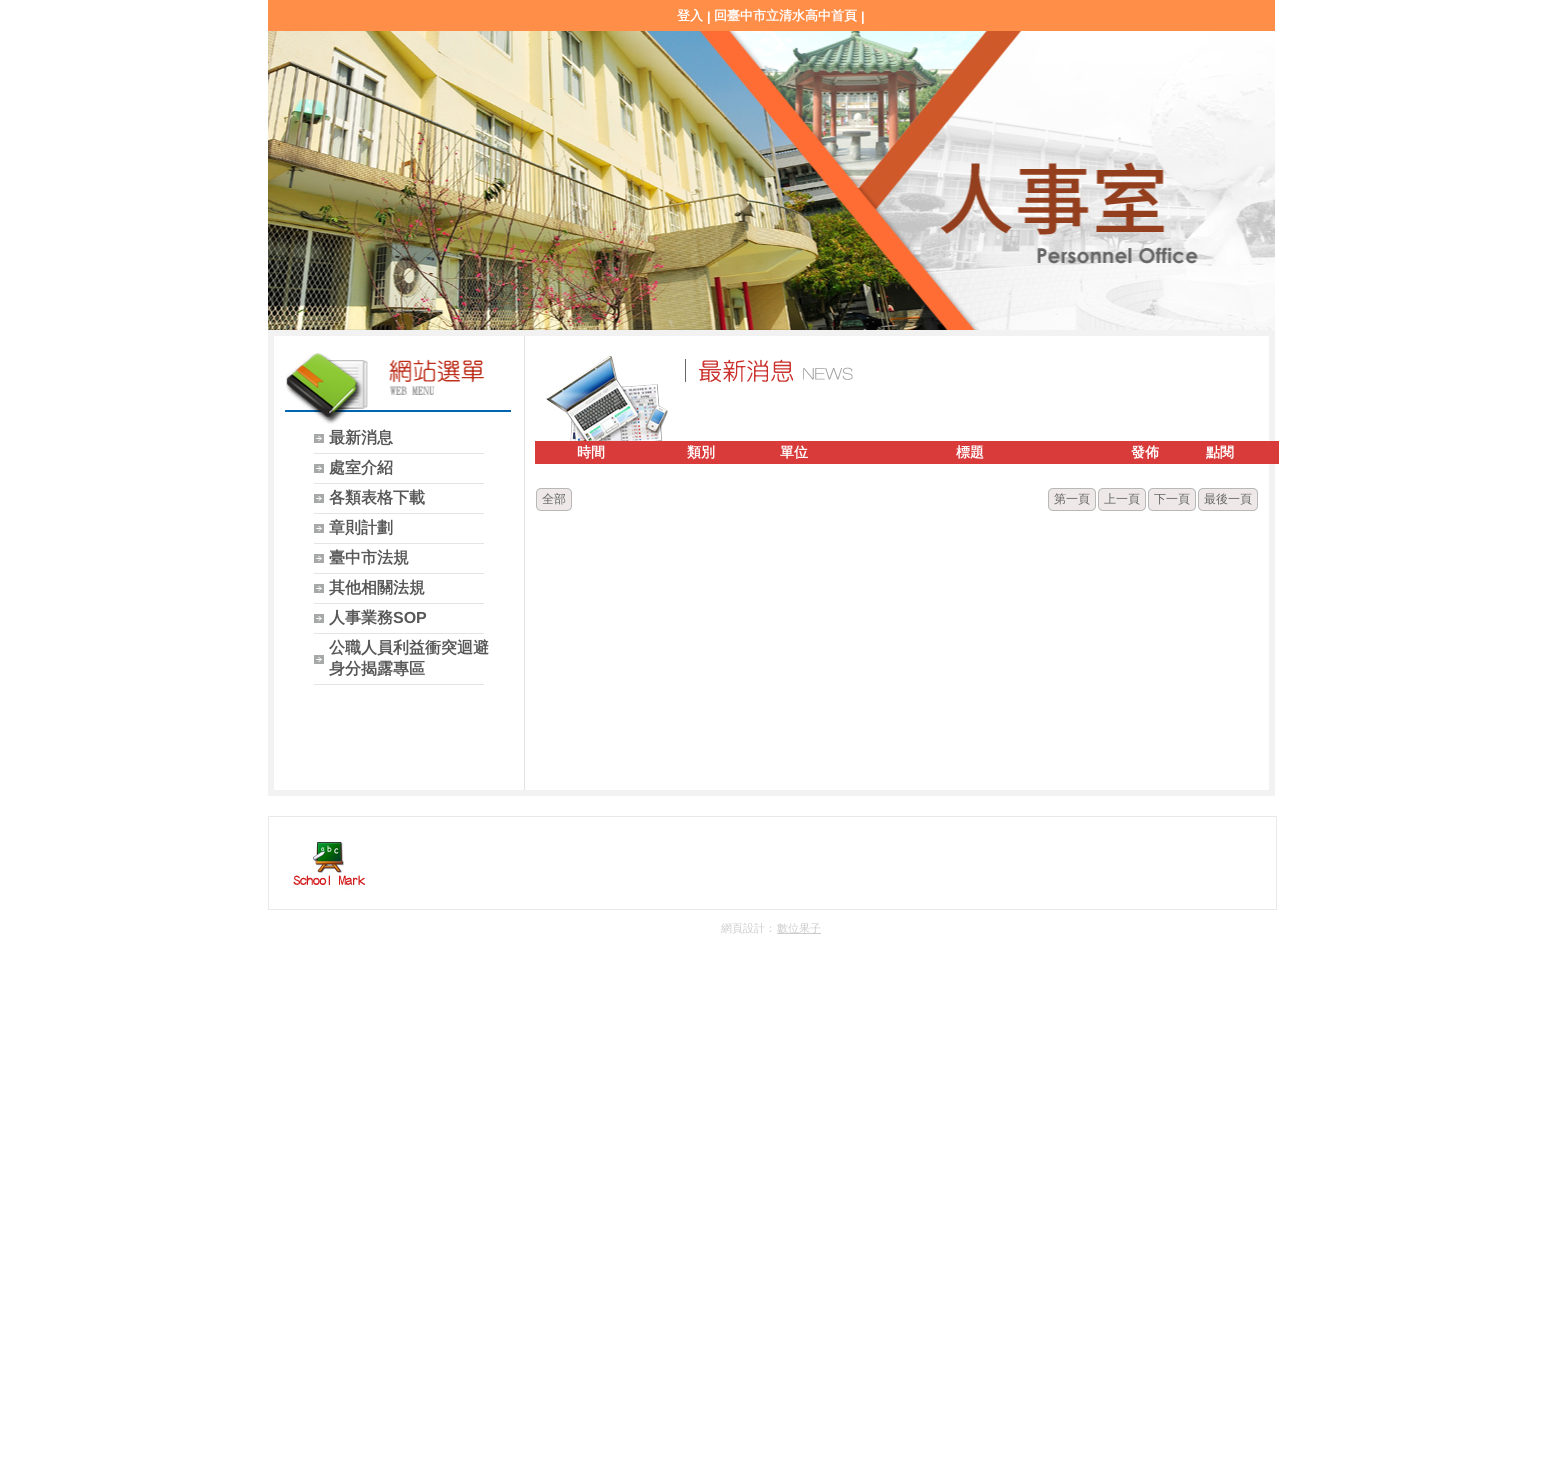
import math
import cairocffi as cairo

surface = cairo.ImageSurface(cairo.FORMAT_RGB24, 1542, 1460)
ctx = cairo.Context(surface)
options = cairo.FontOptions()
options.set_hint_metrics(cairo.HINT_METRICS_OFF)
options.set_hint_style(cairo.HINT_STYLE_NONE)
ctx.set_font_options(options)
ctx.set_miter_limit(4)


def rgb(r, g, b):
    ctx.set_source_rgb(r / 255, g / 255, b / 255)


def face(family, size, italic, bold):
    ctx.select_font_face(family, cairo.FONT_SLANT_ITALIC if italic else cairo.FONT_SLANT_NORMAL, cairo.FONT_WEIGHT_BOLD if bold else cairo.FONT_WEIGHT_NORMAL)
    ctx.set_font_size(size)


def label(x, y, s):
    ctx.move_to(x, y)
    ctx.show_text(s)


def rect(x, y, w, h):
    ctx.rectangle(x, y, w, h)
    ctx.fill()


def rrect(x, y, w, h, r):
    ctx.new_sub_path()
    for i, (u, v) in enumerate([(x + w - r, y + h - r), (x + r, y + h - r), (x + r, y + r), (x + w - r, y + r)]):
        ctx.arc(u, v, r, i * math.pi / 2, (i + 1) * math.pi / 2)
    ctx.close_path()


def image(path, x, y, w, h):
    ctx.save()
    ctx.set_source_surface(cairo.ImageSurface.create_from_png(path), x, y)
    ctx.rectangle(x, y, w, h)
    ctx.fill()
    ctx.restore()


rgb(255, 255, 255)
ctx.paint()
rgb(255, 142, 73)
rect(268, 0, 1007, 31)
face('WenQuanYi Zen Hei', 13, 0, 1)
rgb(255, 255, 255)
label(677, 20, '登入')
face('Liberation Sans', 13, 0, 1)
label(707, 21, '|')
face('WenQuanYi Zen Hei', 13, 0, 1)
label(714, 20, '回臺中市立清水高中首頁')
face('Liberation Sans', 13, 0, 1)
label(861, 21, '|')
image('image0.png', 268, 31, 1007, 299)
ctx.rectangle(271, 333, 1001, 460)
rgb(242, 242, 242)
ctx.set_line_width(6)
ctx.stroke()
image('image1.png', 285, 353, 226, 71)
rgb(228, 228, 228)
rect(314, 453, 170, 1)
image('image2.png', 314, 434, 10, 9)
face('WenQuanYi Zen Hei', 16, 0, 1)
rgb(87, 87, 87)
label(329, 443, '最新消息')
rgb(228, 228, 228)
rect(314, 483, 170, 1)
image('image2.png', 314, 464, 10, 9)
rgb(87, 87, 87)
label(329, 473, '處室介紹')
rgb(228, 228, 228)
rect(314, 513, 170, 1)
image('image2.png', 314, 494, 10, 9)
rgb(87, 87, 87)
label(329, 503, '各類表格下載')
rgb(228, 228, 228)
rect(314, 543, 170, 1)
image('image2.png', 314, 524, 10, 9)
rgb(87, 87, 87)
label(329, 533, '章則計劃')
rgb(228, 228, 228)
rect(314, 573, 170, 1)
image('image2.png', 314, 554, 10, 9)
rgb(87, 87, 87)
label(329, 563, '臺中市法規')
rgb(228, 228, 228)
rect(314, 603, 170, 1)
image('image2.png', 314, 584, 10, 9)
rgb(87, 87, 87)
label(329, 593, '其他相關法規')
rgb(228, 228, 228)
rect(314, 633, 170, 1)
image('image2.png', 314, 614, 10, 9)
rgb(87, 87, 87)
label(329, 623, '人事業務')
face('Liberation Sans', 16, 0, 1)
label(393, 623, 'SOP')
rgb(228, 228, 228)
rect(314, 684, 170, 1)
image('image2.png', 314, 655, 10, 9)
face('WenQuanYi Zen Hei', 16, 0, 1)
rgb(87, 87, 87)
label(329, 653, '公職人員利益衝突迴避')
label(329, 674, '身分揭露專區')
rgb(226, 226, 226)
rect(524, 336, 1, 454)
image('image3.png', 546, 356, 307, 85)
rgb(217, 58, 58)
rect(535, 441, 744, 23)
face('WenQuanYi Zen Hei', 14, 0, 1)
rgb(255, 255, 255)
label(577, 457, '時間')
label(687, 457, '類別')
label(780, 457, '單位')
label(956, 457, '標題')
label(1131, 457, '發佈')
label(1206, 457, '點閱')
rgb(238, 232, 232)
rrect(536.5, 488.5, 35, 22, 4.5)
ctx.fill_preserve()
rgb(184, 184, 184)
ctx.set_line_width(1)
ctx.stroke()
face('WenQuanYi Zen Hei Medium', 12, 0, 0)
rgb(101, 101, 101)
label(542, 503, '全部')
rgb(238, 232, 232)
rrect(1048.5, 488.5, 47, 22, 4.5)
ctx.fill_preserve()
rgb(184, 184, 184)
ctx.stroke()
rgb(101, 101, 101)
label(1054, 503, '第一頁')
rgb(238, 232, 232)
rrect(1098.5, 488.5, 47, 22, 4.5)
ctx.fill_preserve()
rgb(184, 184, 184)
ctx.stroke()
rgb(101, 101, 101)
label(1104, 503, '上一頁')
rgb(238, 232, 232)
rrect(1148.5, 488.5, 47, 22, 4.5)
ctx.fill_preserve()
rgb(184, 184, 184)
ctx.stroke()
rgb(101, 101, 101)
label(1154, 503, '下一頁')
rgb(238, 232, 232)
rrect(1198.5, 488.5, 59, 22, 4.5)
ctx.fill_preserve()
rgb(184, 184, 184)
ctx.stroke()
rgb(101, 101, 101)
label(1204, 503, '最後一頁')
ctx.rectangle(268.5, 816.5, 1008, 93)
rgb(233, 233, 233)
ctx.stroke()
image('image4.png', 293, 842, 72, 50)
face('WenQuanYi Zen Hei Medium', 11, 0, 0)
rgb(204, 204, 204)
label(721, 932, '網頁設計：')
rect(777, 933, 44, 1)
label(777, 932, '數位果子')
surface.write_to_png('render.png')
